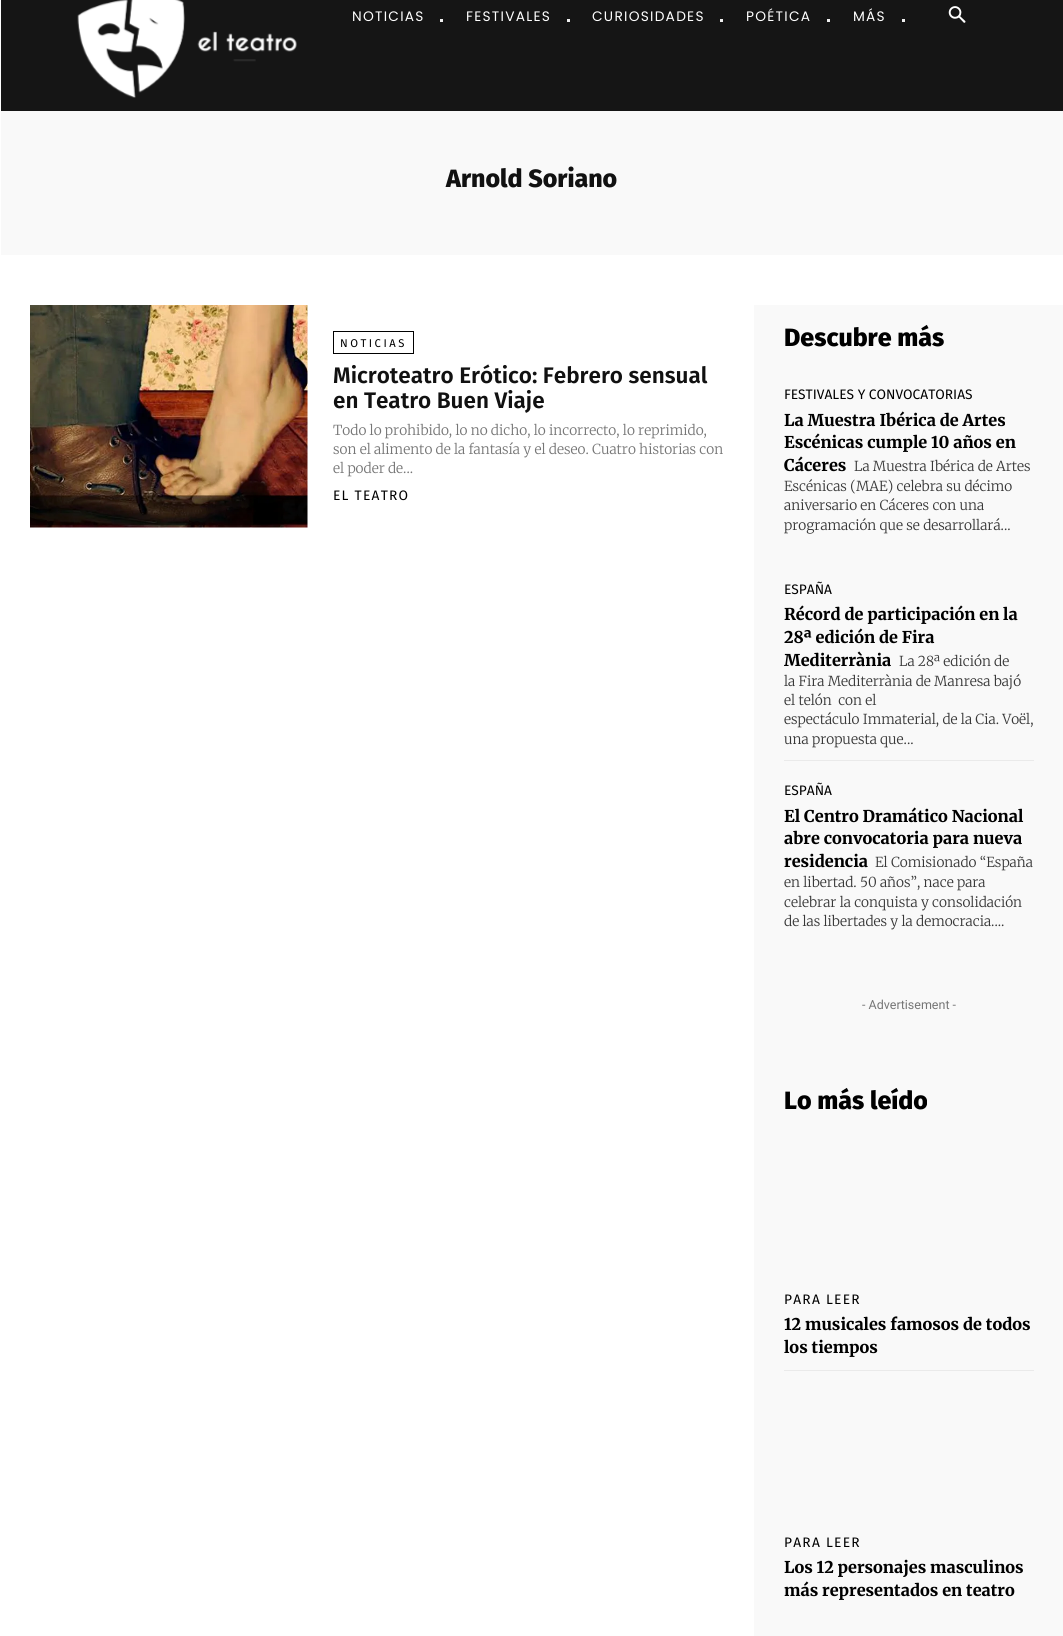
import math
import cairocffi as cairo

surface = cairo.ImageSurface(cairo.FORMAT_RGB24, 1063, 1636)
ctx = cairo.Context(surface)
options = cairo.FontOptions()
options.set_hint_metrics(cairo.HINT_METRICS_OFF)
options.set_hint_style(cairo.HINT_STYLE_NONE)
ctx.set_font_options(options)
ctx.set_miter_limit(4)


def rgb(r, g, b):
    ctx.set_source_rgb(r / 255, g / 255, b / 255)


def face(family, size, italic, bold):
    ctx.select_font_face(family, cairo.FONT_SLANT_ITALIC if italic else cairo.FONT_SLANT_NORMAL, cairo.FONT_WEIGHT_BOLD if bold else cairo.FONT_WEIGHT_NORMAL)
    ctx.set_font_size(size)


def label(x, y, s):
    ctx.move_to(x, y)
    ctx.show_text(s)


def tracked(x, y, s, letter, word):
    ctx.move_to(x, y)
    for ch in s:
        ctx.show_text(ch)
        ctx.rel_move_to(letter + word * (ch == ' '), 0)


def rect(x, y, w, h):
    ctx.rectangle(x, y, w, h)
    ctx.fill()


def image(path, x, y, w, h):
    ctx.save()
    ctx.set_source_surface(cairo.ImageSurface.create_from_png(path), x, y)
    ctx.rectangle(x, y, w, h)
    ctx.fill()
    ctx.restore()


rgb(255, 255, 255)
ctx.paint()
rgb(21, 21, 21)
rect(1, 0, 1062, 111)
image('image0.png', 77, 0, 220, 98)
face('Poppins', 13.75, 0, 0)
rgb(255, 255, 255)
tracked(352, 21, 'NOTICIAS', 1.25, 0)
rgb(239, 239, 239)
rect(440, 19, 3, 3)
rgb(255, 255, 255)
tracked(466, 21, 'FESTIVALES', 1.25, 0)
rgb(239, 239, 239)
rect(567, 19, 3, 3)
rgb(255, 255, 255)
tracked(592, 21, 'CURIOSIDADES', 1.25, 0)
rgb(239, 239, 239)
rect(720, 19, 3, 3)
rgb(255, 255, 255)
tracked(746, 21, 'POÉTICA', 1.25, 0)
rgb(239, 239, 239)
rect(827, 19, 3, 3)
rgb(255, 255, 255)
tracked(853, 21, 'MÁS', 1.25, 0)
rgb(239, 239, 239)
rect(902, 19, 3, 3)
image('image1.png', 948, 6, 18, 17)
rgb(249, 249, 249)
rect(1, 111, 1062, 144)
face('Fira Sans ExtraBold', 25, 0, 0)
rgb(17, 17, 17)
label(446, 187, 'Arnold Soriano')
image('image2.png', 30, 305, 278, 223)
ctx.rectangle(333.5, 331.5, 80, 22)
rgb(0, 0, 0)
ctx.set_line_width(1)
ctx.stroke()
face('Fira Sans', 11.25, 0, 0)
tracked(340, 347, 'NOTICIAS', 2.5, 0)
face('Fira Sans SemiBold', 22.5, 0, 0)
rgb(17, 17, 17)
label(333, 383, 'Microteatro Erótico: Febrero sensual')
label(333, 408, 'en Teatro Buen Viaje')
face('Merriweather Light', 13.75, 0, 0)
rgb(118, 118, 118)
label(333, 435, 'Todo lo prohibido, lo no dicho, lo incorrecto, lo reprimido,')
label(333, 454, 'son el alimento de la fantasía y el deseo. Cuatro historias con')
label(333, 473, 'el poder de...')
face('Fira Sans', 13.75, 0, 0)
rgb(0, 0, 0)
tracked(333, 500, 'EL TEATRO', 1.25, 0)
rgb(249, 249, 249)
rect(754, 305, 309, 1331)
face('Fira Sans ExtraBold', 25, 0, 0)
rgb(0, 0, 0)
label(784, 346, 'Descubre más')
face('Fira Sans', 13.75, 0, 0)
label(784, 399, 'FESTIVALES Y CONVOCATORIAS')
face('Merriweather ExtraBold', 16.25, 0, 0)
label(784, 426, 'La Muestra Ibérica de Artes')
label(784, 448, 'Escénicas cumple 10 años en')
label(784, 471, 'Cáceres')
face('Merriweather Light', 13.75, 0, 0)
rgb(56, 56, 56)
label(854, 471, 'La Muestra Ibérica de Artes')
label(784, 491, 'Escénicas (MAE) celebra su décimo')
label(784, 510, 'aniversario en Cáceres con una')
label(784, 530, 'programación que se desarrollará...')
face('Fira Sans', 13.75, 0, 0)
rgb(0, 0, 0)
label(784, 594, 'ESPAÑA')
face('Merriweather ExtraBold', 16.25, 0, 0)
label(784, 620, 'Récord de participación en la')
label(784, 643, '28ª edición de Fira')
label(784, 666, 'Mediterrània')
face('Merriweather Light', 13.75, 0, 0)
rgb(56, 56, 56)
label(899, 666, 'La 28ª edición de')
label(784, 686, 'la Fira Mediterrània de Manresa bajó')
label(784, 705, 'el telón  con el')
label(784, 724, 'espectáculo Immaterial, de la Cia. Voël,')
label(784, 744, 'una propuesta que...')
rgb(234, 234, 234)
rect(784, 760, 250, 1)
face('Fira Sans', 13.75, 0, 0)
rgb(0, 0, 0)
label(784, 795, 'ESPAÑA')
face('Merriweather ExtraBold', 16.25, 0, 0)
label(784, 822, 'El Centro Dramático Nacional')
label(784, 844, 'abre convocatoria para nueva')
label(784, 867, 'residencia')
face('Merriweather Light', 13.75, 0, 0)
rgb(56, 56, 56)
label(875, 867, 'El Comisionado “España')
label(784, 887, 'en libertad. 50 años”, nace para')
label(784, 907, 'celebrar la conquista y consolidación')
label(784, 926, 'de las libertades y la democracia....')
face('Roboto', 12.5, 0, 0)
rgb(118, 118, 118)
label(862, 1009, '- Advertisement -')
face('Fira Sans ExtraBold', 25, 0, 0)
rgb(0, 0, 0)
label(784, 1109, 'Lo más leído')
face('Fira Sans', 13.75, 0, 0)
tracked(784, 1304, 'PARA LEER', 1.25, 0)
face('Merriweather ExtraBold', 16.25, 0, 0)
label(784, 1330, '12 musicales famosos de todos')
label(784, 1353, 'los tiempos')
rgb(234, 234, 234)
rect(784, 1370, 250, 1)
face('Fira Sans', 13.75, 0, 0)
rgb(0, 0, 0)
tracked(784, 1547, 'PARA LEER', 1.25, 0)
face('Merriweather ExtraBold', 16.25, 0, 0)
label(784, 1573, 'Los 12 personajes masculinos')
label(784, 1596, 'más representados en teatro')
surface.write_to_png('render.png')
